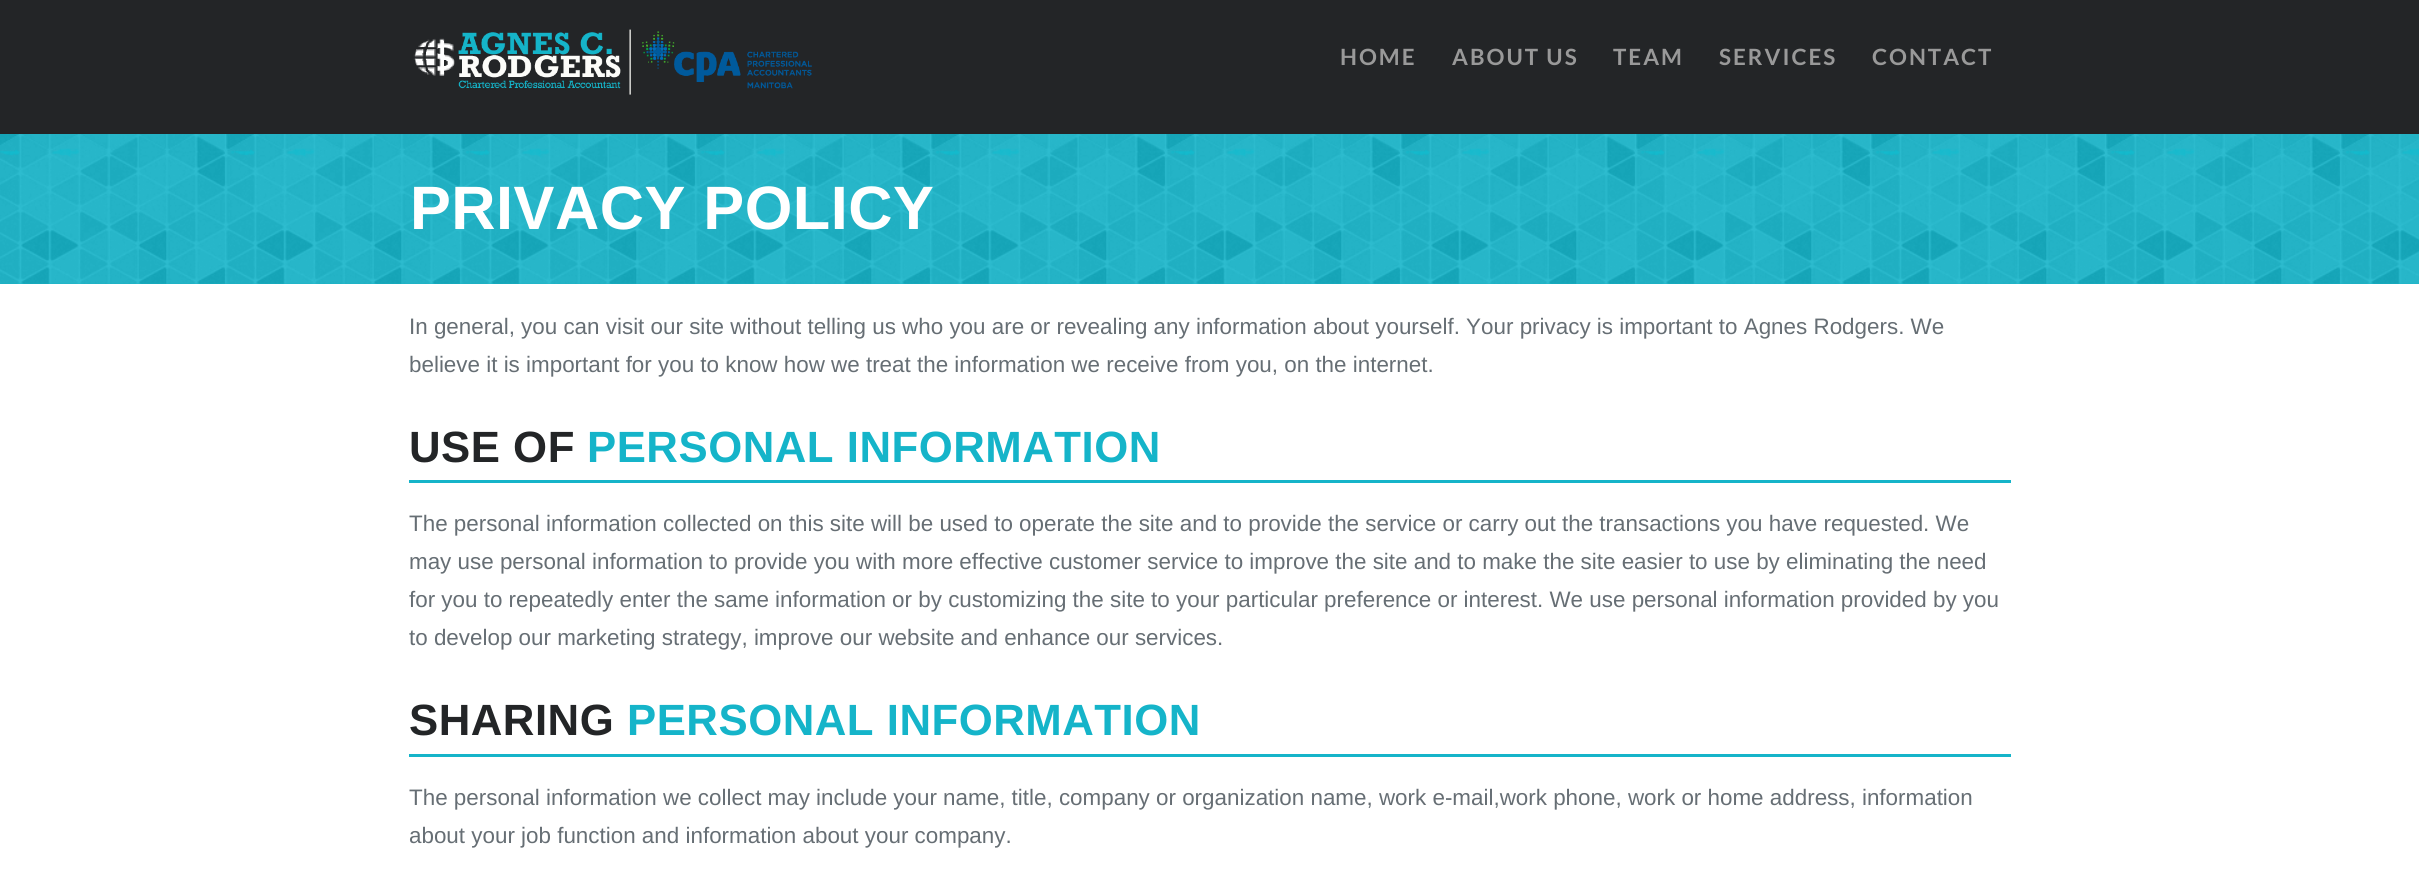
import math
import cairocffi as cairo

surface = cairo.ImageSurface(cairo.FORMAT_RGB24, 2419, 882)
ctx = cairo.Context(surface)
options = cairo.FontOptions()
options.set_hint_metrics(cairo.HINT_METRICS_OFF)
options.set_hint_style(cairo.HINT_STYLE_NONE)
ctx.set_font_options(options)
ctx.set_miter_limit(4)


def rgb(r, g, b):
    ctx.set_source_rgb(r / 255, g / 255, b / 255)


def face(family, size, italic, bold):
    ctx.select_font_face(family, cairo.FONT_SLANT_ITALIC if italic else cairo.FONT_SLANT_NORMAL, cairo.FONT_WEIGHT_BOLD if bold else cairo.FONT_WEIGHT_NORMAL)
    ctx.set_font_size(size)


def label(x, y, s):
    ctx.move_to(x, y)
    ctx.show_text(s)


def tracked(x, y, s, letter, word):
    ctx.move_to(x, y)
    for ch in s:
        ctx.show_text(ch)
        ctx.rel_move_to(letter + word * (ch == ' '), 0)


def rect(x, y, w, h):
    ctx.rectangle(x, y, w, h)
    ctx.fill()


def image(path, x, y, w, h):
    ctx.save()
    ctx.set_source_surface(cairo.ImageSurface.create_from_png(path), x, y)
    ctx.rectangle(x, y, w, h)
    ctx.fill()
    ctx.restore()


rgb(255, 255, 255)
ctx.paint()
rgb(35, 37, 39)
rect(0, 0, 2419, 134)
image('image0.png', 413, 29, 399, 66)
face('Lato', 22.4, 0, 1)
rgb(153, 153, 153)
tracked(1340, 65, 'HOME', 2, 0)
tracked(1452, 65, 'ABOUT US', 2, 0)
tracked(1613, 65, 'TEAM', 2, 0)
tracked(1719, 65, 'SERVICES', 2, 0)
tracked(1872, 65, 'CONTACT', 2, 0)
rgb(21, 180, 201)
rect(0, 134, 2419, 150)
image('image1.png', 0, 134, 2419, 150)
face('Liberation Sans', 61.25, 0, 1)
rgb(255, 255, 255)
tracked(410, 229, 'PRIVACY POLICY', 0.5, 0)
face('Liberation Sans', 22.4, 0, 0)
rgb(102, 110, 116)
label(409, 334, 'In general, you can visit our site without telling us who you are or revealing any information about yourself. Your privacy is important to Agnes Rodgers. We')
label(409, 372, 'believe it is important for you to know how we treat the information we receive from you, on the internet.')
face('Liberation Sans', 43.75, 0, 1)
rgb(35, 37, 39)
tracked(409, 462, 'USE OF', 0.5, 0)
rgb(21, 180, 201)
tracked(587, 462, 'PERSONAL INFORMATION', 0.5, 0)
rect(409, 480, 1602, 3)
face('Liberation Sans', 22.4, 0, 0)
rgb(102, 110, 116)
label(409, 531, 'The personal information collected on this site will be used to operate the site and to provide the service or carry out the transactions you have requested. We')
label(409, 569, 'may use personal information to provide you with more effective customer service to improve the site and to make the site easier to use by eliminating the need')
label(409, 607, 'for you to repeatedly enter the same information or by customizing the site to your particular preference or interest. We use personal information provided by you')
label(409, 645, 'to develop our marketing strategy, improve our website and enhance our services.')
face('Liberation Sans', 43.75, 0, 1)
rgb(35, 37, 39)
tracked(409, 735, 'SHARING', 0.5, 0)
rgb(21, 180, 201)
tracked(627, 735, 'PERSONAL INFORMATION', 0.5, 0)
rect(409, 754, 1602, 3)
face('Liberation Sans', 22.4, 0, 0)
rgb(102, 110, 116)
label(409, 805, 'The personal information we collect may include your name, title, company or organization name, work e-mail,work phone, work or home address, information')
label(409, 843, 'about your job function and information about your company.')
surface.write_to_png('render.png')
